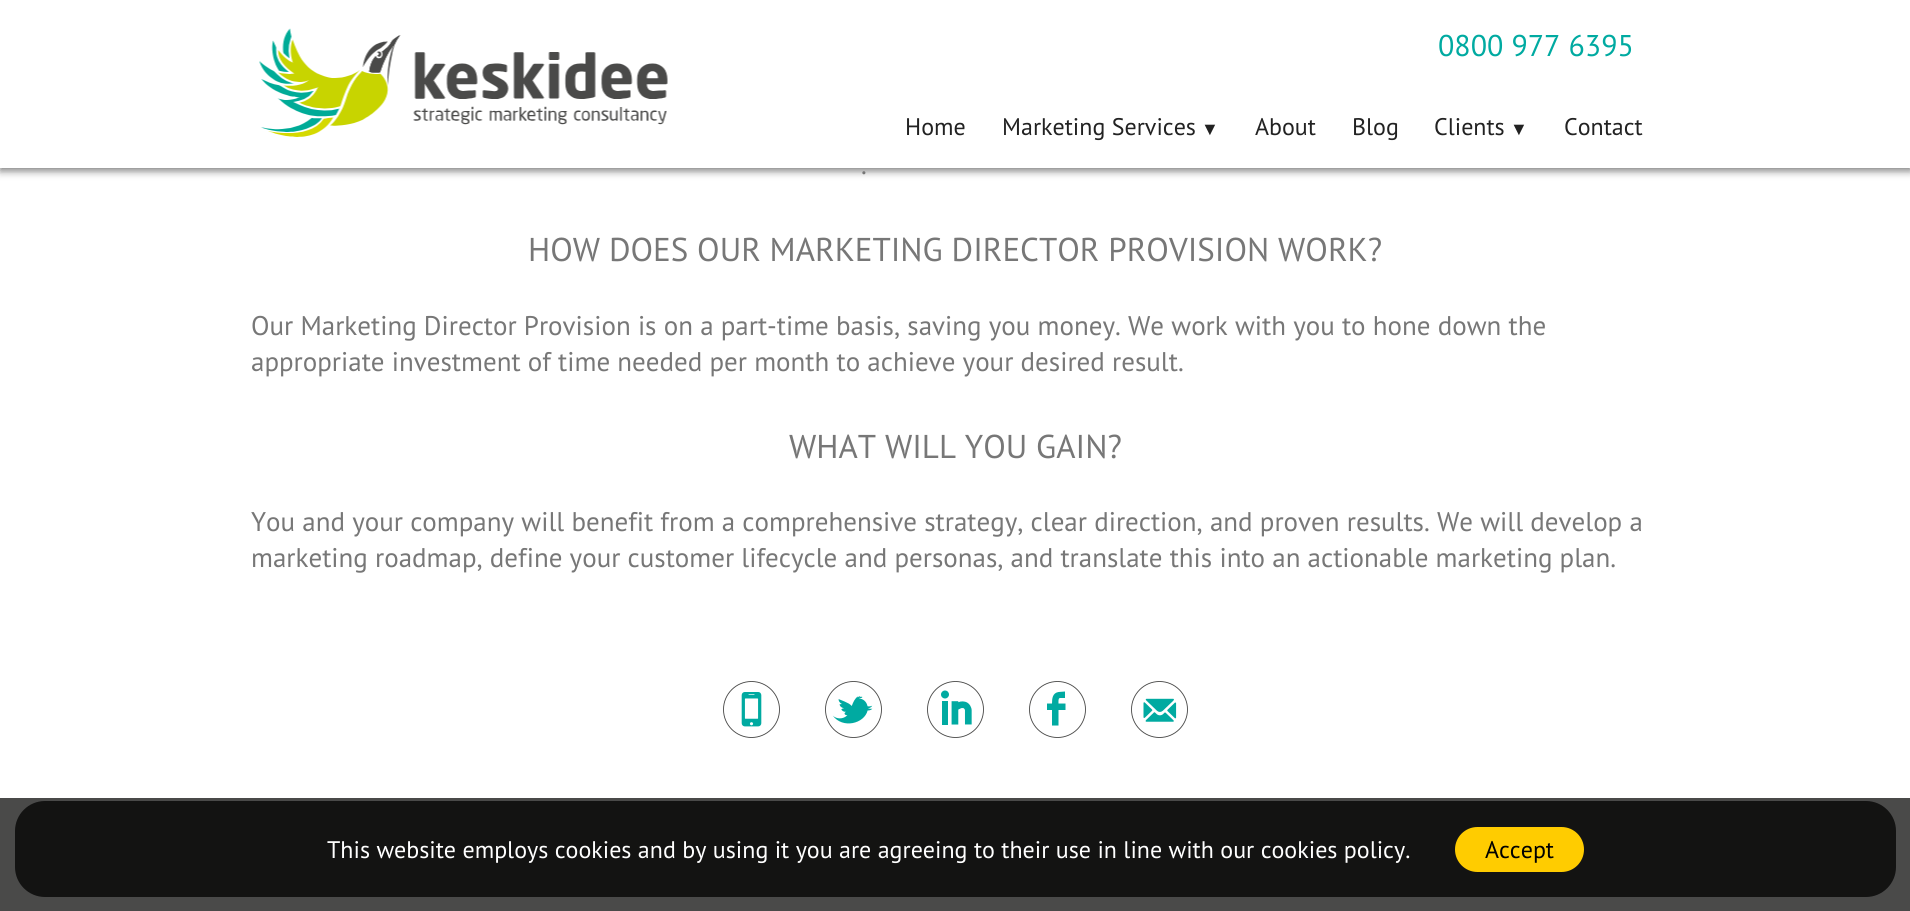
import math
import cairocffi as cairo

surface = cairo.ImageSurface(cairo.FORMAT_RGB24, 1910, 911)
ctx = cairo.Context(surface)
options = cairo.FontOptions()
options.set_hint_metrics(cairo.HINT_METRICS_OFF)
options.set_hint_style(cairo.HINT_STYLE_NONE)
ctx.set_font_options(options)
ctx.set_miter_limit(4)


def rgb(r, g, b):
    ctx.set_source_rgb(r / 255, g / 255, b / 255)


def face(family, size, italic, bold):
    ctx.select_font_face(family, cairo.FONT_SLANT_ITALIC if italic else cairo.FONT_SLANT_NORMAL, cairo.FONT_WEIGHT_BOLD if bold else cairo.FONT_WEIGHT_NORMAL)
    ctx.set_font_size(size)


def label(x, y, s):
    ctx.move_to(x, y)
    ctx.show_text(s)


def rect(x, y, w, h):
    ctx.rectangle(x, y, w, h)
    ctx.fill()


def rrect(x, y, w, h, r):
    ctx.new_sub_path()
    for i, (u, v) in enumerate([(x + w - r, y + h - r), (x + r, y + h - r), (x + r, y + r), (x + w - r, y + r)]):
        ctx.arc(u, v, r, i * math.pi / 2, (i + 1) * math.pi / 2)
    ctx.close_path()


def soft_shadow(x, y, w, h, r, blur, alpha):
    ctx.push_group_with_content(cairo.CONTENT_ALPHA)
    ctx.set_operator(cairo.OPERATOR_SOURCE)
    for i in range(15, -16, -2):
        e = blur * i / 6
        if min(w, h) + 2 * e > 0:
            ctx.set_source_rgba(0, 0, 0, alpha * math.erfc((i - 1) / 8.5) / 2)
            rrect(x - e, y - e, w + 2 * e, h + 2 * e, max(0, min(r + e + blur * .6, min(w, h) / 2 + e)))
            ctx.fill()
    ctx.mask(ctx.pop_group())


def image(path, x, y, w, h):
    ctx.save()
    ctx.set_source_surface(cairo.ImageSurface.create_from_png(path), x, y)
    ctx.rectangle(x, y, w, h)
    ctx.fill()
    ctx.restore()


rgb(255, 255, 255)
ctx.paint()
rgb(0, 0, 0)
soft_shadow(0, 3, 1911, 168, 0, 4, 0.5)
rgb(255, 255, 255)
rect(0, 0, 1910, 168)
image('image0.png', 259, 28, 409, 109)
face('PT Sans', 30, 0, 0)
rgb(0, 170, 161)
label(1438, 56, '0800 977 6395')
face('PT Sans', 24, 0, 0)
rgb(34, 34, 34)
label(905, 135, 'Home')
label(1002, 135, 'Marketing Services')
face('Liberation Serif', 18, 0, 0)
label(1201, 135, '▼')
face('PT Sans', 24, 0, 0)
label(1255, 135, 'About')
label(1352, 135, 'Blog')
label(1434, 135, 'Clients')
face('Liberation Serif', 18, 0, 0)
label(1510, 135, '▼')
face('PT Sans', 24, 0, 0)
label(1564, 135, 'Contact')
face('PT Sans', 27, 0, 0)
rgb(119, 119, 119)
label(861, 174, '.')
face('PT Sans', 33, 0, 0)
label(528, 261, 'HOW DOES OUR MARKETING DIRECTOR PROVISION WORK?')
face('PT Sans', 27, 0, 0)
label(251, 335, 'Our Marketing Director Provision is on a part-time basis, saving you money. We work with you to hone down the')
label(251, 371, 'appropriate investment of time needed per month to achieve your desired result.')
face('PT Sans', 33, 0, 0)
label(789, 458, 'WHAT WILL YOU GAIN?')
face('PT Sans', 27, 0, 0)
label(251, 531, 'You and your company will benefit from a comprehensive strategy, clear direction, and proven results. We will develop a')
label(251, 567, 'marketing roadmap, define your customer lifecycle and personas, and translate this into an actionable marketing plan.')
image('image1.png', 723, 681, 57, 57)
image('image2.png', 825, 681, 57, 57)
image('image3.png', 927, 681, 57, 57)
rgb(0, 170, 161)
ctx.new_path()
ctx.move_to(1060, 698)
ctx.line_to(1065, 698)
ctx.line_to(1065, 691.5)
ctx.line_to(1058.5, 692)
ctx.curve_to(1052.5, 693, 1052, 698.5, 1052, 703.5)
ctx.line_to(1047, 703.5)
ctx.line_to(1047, 710)
ctx.line_to(1052, 710)
ctx.line_to(1052, 725.5)
ctx.line_to(1058.5, 725.5)
ctx.line_to(1058.5, 710)
ctx.line_to(1065.5, 710)
ctx.line_to(1065.5, 703.5)
ctx.line_to(1058.5, 703.5)
ctx.curve_to(1058.5, 702.5, 1058, 698, 1060, 698)
ctx.close_path()
ctx.fill()
ctx.arc(1057.5, 709.5, 28, 0, 2 * math.pi)
rgb(74, 74, 73)
ctx.set_line_width(0.9)
ctx.stroke()
image('image4.png', 1131, 681, 57, 57)
rect(0, 798, 1910, 113)
ctx.set_source_rgba(0, 0, 0, 0.75)
rrect(15, 801, 1881, 96, 30)
ctx.fill()
face('PT Sans', 24, 0, 0)
rgb(255, 255, 255)
label(327, 858, 'This website employs cookies and by using it you are agreeing to their use in line with our cookies policy.')
rgb(255, 204, 0)
rrect(1455, 827, 129, 45, 22.5)
ctx.fill()
rgb(0, 0, 0)
label(1485, 858, 'Accept')
surface.write_to_png('render.png')
